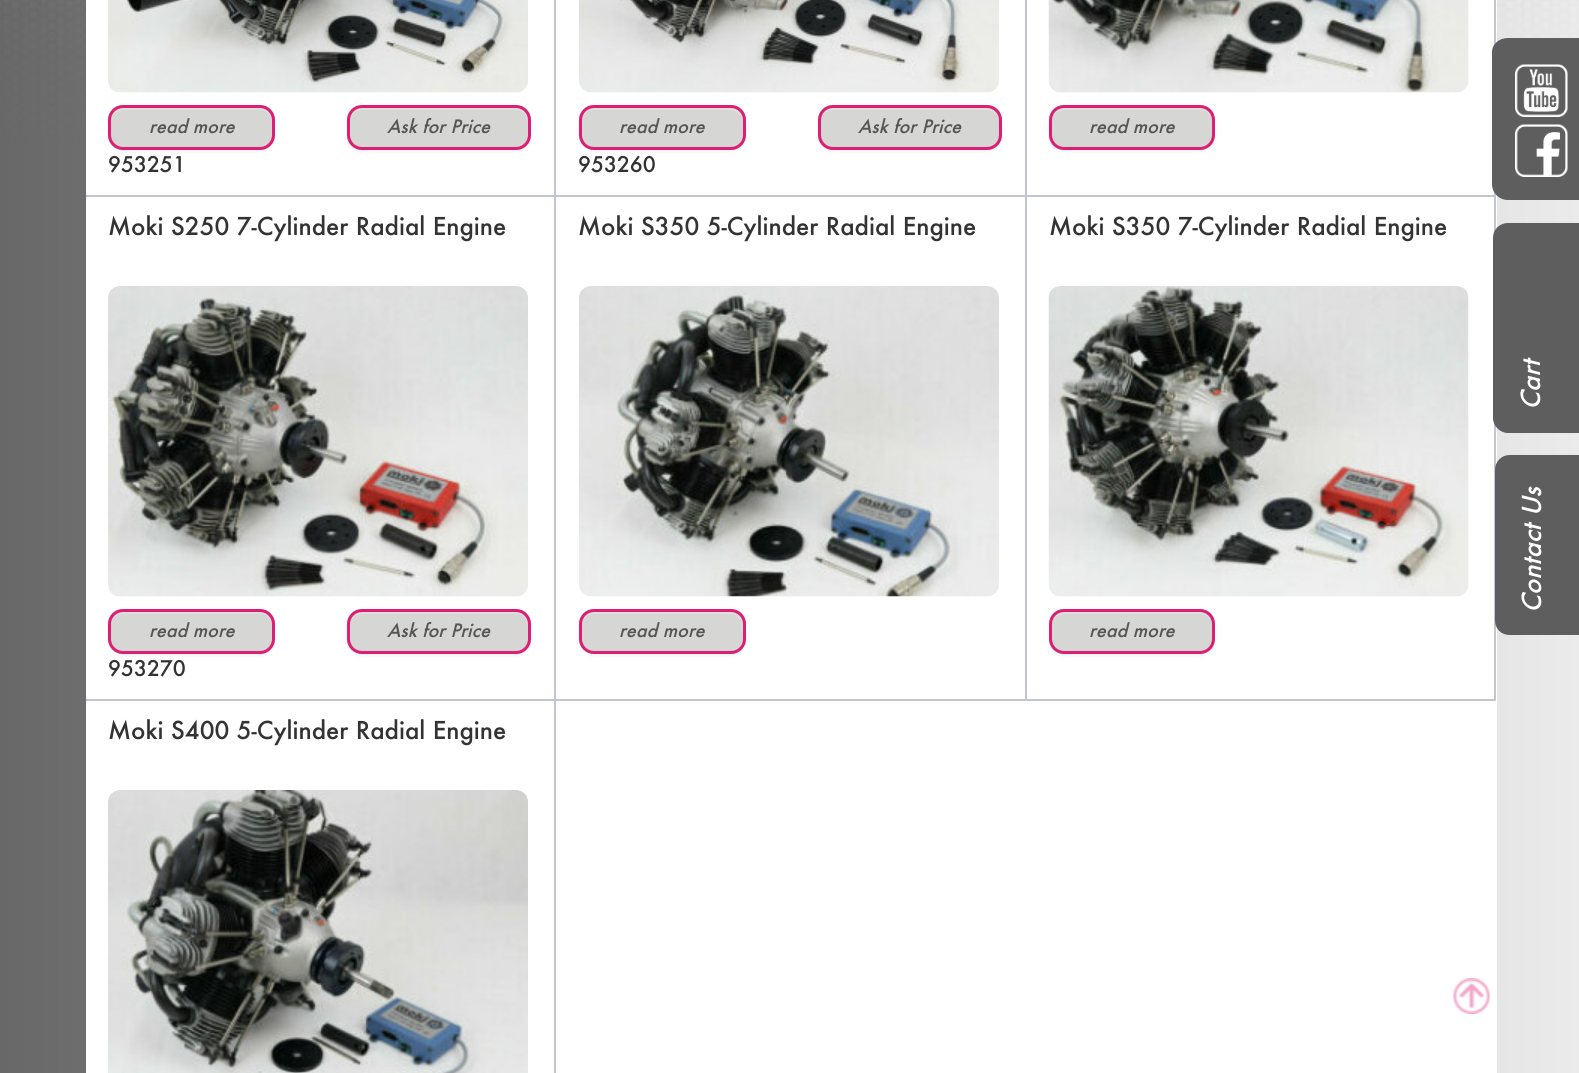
import math
import cairocffi as cairo

surface = cairo.ImageSurface(cairo.FORMAT_RGB24, 1579, 1073)
ctx = cairo.Context(surface)
options = cairo.FontOptions()
options.set_hint_metrics(cairo.HINT_METRICS_OFF)
options.set_hint_style(cairo.HINT_STYLE_NONE)
ctx.set_font_options(options)
ctx.set_miter_limit(4)


def rgb(r, g, b):
    ctx.set_source_rgb(r / 255, g / 255, b / 255)


def face(family, size, italic, bold):
    ctx.select_font_face(family, cairo.FONT_SLANT_ITALIC if italic else cairo.FONT_SLANT_NORMAL, cairo.FONT_WEIGHT_BOLD if bold else cairo.FONT_WEIGHT_NORMAL)
    ctx.set_font_size(size)


def label(x, y, s):
    ctx.move_to(x, y)
    ctx.show_text(s)


def rect(x, y, w, h):
    ctx.rectangle(x, y, w, h)
    ctx.fill()


def rrect(x, y, w, h, r):
    ctx.new_sub_path()
    for i, (u, v) in enumerate([(x + w - r, y + h - r), (x + r, y + h - r), (x + r, y + r), (x + w - r, y + r)]):
        ctx.arc(u, v, r, i * math.pi / 2, (i + 1) * math.pi / 2)
    ctx.close_path()


def soft_shadow(x, y, w, h, r, blur, alpha):
    ctx.push_group_with_content(cairo.CONTENT_ALPHA)
    ctx.set_operator(cairo.OPERATOR_SOURCE)
    for i in range(15, -16, -2):
        e = blur * i / 6
        if min(w, h) + 2 * e > 0:
            ctx.set_source_rgba(0, 0, 0, alpha * math.erfc((i - 1) / 8.5) / 2)
            rrect(x - e, y - e, w + 2 * e, h + 2 * e, max(0, min(r + e + blur * .6, min(w, h) / 2 + e)))
            ctx.fill()
    ctx.mask(ctx.pop_group())


def image(path, x, y, w, h):
    ctx.save()
    ctx.set_source_surface(cairo.ImageSurface.create_from_png(path), x, y)
    ctx.rectangle(x, y, w, h)
    ctx.fill()
    ctx.restore()


rgb(255, 255, 255)
ctx.paint()
image('image0.png', 0, 0, 1579, 1073)
rgb(255, 255, 255)
rect(86, 0, 1411, 1073)
rgb(194, 196, 209)
rect(554, 0, 2, 1073)
rect(86, 195, 469, 2)
image('image1.png', 108, 0, 420, 93)
rgb(0, 0, 0)
soft_shadow(108, 107, 167, 45, 15, 1.5, 0.05)
rgb(214, 214, 212)
rrect(108, 105, 167, 45, 15)
ctx.fill()
rgb(222, 222, 221)
ctx.new_path()
ctx.move_to(123, 110)
ctx.line_to(260, 110)
ctx.curve_to(266, 110, 272, 115, 272, 122)
ctx.curve_to(272, 103, 251, 108, 237, 108)
ctx.line_to(146, 108)
ctx.curve_to(132, 108, 111, 103, 111, 122)
ctx.curve_to(111, 115, 116, 110, 123, 110)
ctx.close_path()
ctx.fill()
rrect(109.5, 106.5, 164, 42, 13.5)
rgb(222, 30, 116)
ctx.set_line_width(3)
ctx.stroke()
face('Futura Medium', 18, 1, 0)
rgb(85, 85, 85)
label(149, 133, 'read more')
face('Futura Medium', 21, 0, 0)
rgb(51, 51, 51)
label(108, 172, '953251')
rgb(0, 0, 0)
soft_shadow(347, 107, 184, 45, 15, 1.5, 0.05)
rgb(214, 214, 212)
rrect(347, 105, 184, 45, 15)
ctx.fill()
rgb(222, 222, 221)
ctx.new_path()
ctx.move_to(362, 110)
ctx.line_to(516, 110)
ctx.curve_to(523, 110, 528, 115, 528, 122)
ctx.line_to(528, 120)
ctx.curve_to(528, 113, 523, 108, 516, 108)
ctx.line_to(362, 108)
ctx.curve_to(355, 108, 350, 113, 350, 120)
ctx.line_to(350, 122)
ctx.curve_to(350, 115, 355, 110, 362, 110)
ctx.close_path()
ctx.fill()
rrect(348.5, 106.5, 181, 42, 13.5)
rgb(222, 30, 116)
ctx.stroke()
face('Futura Medium', 18, 1, 0)
rgb(85, 85, 85)
label(387, 133, 'Ask for Price')
rgb(194, 196, 209)
rect(1025, 0, 2, 701)
rect(555, 195, 471, 2)
image('image2.png', 579, 0, 420, 93)
rgb(0, 0, 0)
soft_shadow(579, 107, 167, 45, 15, 1.5, 0.05)
rgb(214, 214, 212)
rrect(579, 105, 167, 45, 15)
ctx.fill()
rgb(222, 222, 221)
ctx.new_path()
ctx.move_to(594, 110)
ctx.line_to(730, 110)
ctx.curve_to(737, 110, 742, 115, 742, 122)
ctx.line_to(742, 136)
ctx.curve_to(742, 139, 741, 141, 740, 143)
ctx.curve_to(742, 141, 743, 138, 743, 135)
ctx.line_to(743, 120)
ctx.curve_to(743, 113, 738, 108, 731, 108)
ctx.line_to(594, 108)
ctx.curve_to(587, 108, 582, 113, 582, 120)
ctx.line_to(582, 122)
ctx.curve_to(582, 115, 587, 110, 594, 110)
ctx.close_path()
ctx.fill()
rrect(580.5, 106.5, 164, 42, 13.5)
rgb(222, 30, 116)
ctx.stroke()
rgb(85, 85, 85)
label(619, 133, 'read more')
face('Futura Medium', 21, 0, 0)
rgb(51, 51, 51)
label(578, 172, '953260')
rgb(0, 0, 0)
soft_shadow(818, 107, 184, 45, 15, 1.5, 0.05)
rgb(214, 214, 212)
rrect(818, 105, 184, 45, 15)
ctx.fill()
rgb(222, 222, 221)
ctx.new_path()
ctx.move_to(832, 110)
ctx.line_to(987, 110)
ctx.curve_to(994, 110, 999, 115, 999, 122)
ctx.line_to(999, 120)
ctx.curve_to(999, 113, 994, 108, 987, 108)
ctx.line_to(833, 108)
ctx.curve_to(828, 108, 823, 111, 822, 116)
ctx.curve_to(824, 112, 828, 110, 832, 110)
ctx.close_path()
ctx.fill()
rrect(819.5, 106.5, 181, 42, 13.5)
rgb(222, 30, 116)
ctx.stroke()
face('Futura Medium', 18, 1, 0)
rgb(85, 85, 85)
label(858, 133, 'Ask for Price')
rgb(194, 196, 209)
rect(1494, 0, 2, 701)
rect(1026, 195, 470, 2)
image('image3.png', 1048, 0, 421, 93)
rgb(0, 0, 0)
soft_shadow(1049, 107, 166, 45, 15, 1.5, 0.05)
rgb(214, 214, 212)
rrect(1049, 105, 166, 45, 15)
ctx.fill()
rgb(222, 222, 221)
ctx.new_path()
ctx.move_to(1064, 110)
ctx.line_to(1200, 110)
ctx.curve_to(1207, 110, 1212, 115, 1212, 122)
ctx.curve_to(1212, 103, 1191, 108, 1177, 108)
ctx.line_to(1087, 108)
ctx.curve_to(1073, 108, 1052, 103, 1052, 122)
ctx.curve_to(1052, 115, 1057, 110, 1064, 110)
ctx.close_path()
ctx.fill()
rrect(1050.5, 106.5, 163, 42, 13.5)
rgb(222, 30, 116)
ctx.stroke()
rgb(85, 85, 85)
label(1089, 133, 'read more')
rgb(194, 196, 209)
rect(86, 699, 1410, 2)
face('Futura Medium', 24, 0, 0)
rgb(51, 51, 51)
label(108, 235, 'Moki S250 7-Cylinder Radial Engine')
image('image4.png', 108, 286, 420, 311)
rgb(0, 0, 0)
soft_shadow(108, 611, 167, 45, 15, 1.5, 0.05)
rgb(214, 214, 212)
rrect(108, 609, 167, 45, 15)
ctx.fill()
rgb(222, 222, 221)
ctx.new_path()
ctx.move_to(123, 614)
ctx.line_to(260, 614)
ctx.curve_to(266, 614, 272, 619, 272, 626)
ctx.curve_to(272, 607, 251, 612, 237, 612)
ctx.line_to(146, 612)
ctx.curve_to(132, 612, 111, 607, 111, 626)
ctx.curve_to(111, 619, 116, 614, 123, 614)
ctx.close_path()
ctx.fill()
rrect(109.5, 610.5, 164, 42, 13.5)
rgb(222, 30, 116)
ctx.stroke()
face('Futura Medium', 18, 1, 0)
rgb(85, 85, 85)
label(149, 637, 'read more')
face('Futura Medium', 21, 0, 0)
rgb(51, 51, 51)
label(108, 676, '953270')
rgb(0, 0, 0)
soft_shadow(347, 611, 184, 45, 15, 1.5, 0.05)
rgb(214, 214, 212)
rrect(347, 609, 184, 45, 15)
ctx.fill()
rgb(222, 222, 221)
ctx.new_path()
ctx.move_to(362, 614)
ctx.line_to(516, 614)
ctx.curve_to(523, 614, 528, 619, 528, 626)
ctx.line_to(528, 624)
ctx.curve_to(528, 617, 523, 612, 516, 612)
ctx.line_to(362, 612)
ctx.curve_to(355, 612, 350, 617, 350, 624)
ctx.line_to(350, 626)
ctx.curve_to(350, 619, 355, 614, 362, 614)
ctx.close_path()
ctx.fill()
rrect(348.5, 610.5, 181, 42, 13.5)
rgb(222, 30, 116)
ctx.stroke()
face('Futura Medium', 18, 1, 0)
rgb(85, 85, 85)
label(387, 637, 'Ask for Price')
face('Futura Medium', 24, 0, 0)
rgb(51, 51, 51)
label(578, 235, 'Moki S350 5-Cylinder Radial Engine')
image('image5.png', 579, 286, 420, 311)
rgb(0, 0, 0)
soft_shadow(579, 611, 167, 45, 15, 1.5, 0.05)
rgb(214, 214, 212)
rrect(579, 609, 167, 45, 15)
ctx.fill()
rgb(222, 222, 221)
ctx.new_path()
ctx.move_to(594, 614)
ctx.line_to(730, 614)
ctx.curve_to(737, 614, 742, 619, 742, 626)
ctx.line_to(742, 640)
ctx.curve_to(742, 643, 741, 645, 740, 647)
ctx.curve_to(742, 645, 743, 642, 743, 639)
ctx.line_to(743, 624)
ctx.curve_to(743, 617, 738, 612, 731, 612)
ctx.line_to(594, 612)
ctx.curve_to(587, 612, 582, 617, 582, 624)
ctx.line_to(582, 626)
ctx.curve_to(582, 619, 587, 614, 594, 614)
ctx.close_path()
ctx.fill()
rrect(580.5, 610.5, 164, 42, 13.5)
rgb(222, 30, 116)
ctx.stroke()
face('Futura Medium', 18, 1, 0)
rgb(85, 85, 85)
label(619, 637, 'read more')
face('Futura Medium', 24, 0, 0)
rgb(51, 51, 51)
label(1049, 235, 'Moki S350 7-Cylinder Radial Engine')
image('image6.png', 1048, 286, 421, 311)
rgb(0, 0, 0)
soft_shadow(1049, 611, 166, 45, 15, 1.5, 0.05)
rgb(214, 214, 212)
rrect(1049, 609, 166, 45, 15)
ctx.fill()
rgb(222, 222, 221)
ctx.new_path()
ctx.move_to(1064, 614)
ctx.line_to(1200, 614)
ctx.curve_to(1207, 614, 1212, 619, 1212, 626)
ctx.curve_to(1212, 607, 1191, 612, 1177, 612)
ctx.line_to(1087, 612)
ctx.curve_to(1073, 612, 1052, 607, 1052, 626)
ctx.curve_to(1052, 619, 1057, 614, 1064, 614)
ctx.close_path()
ctx.fill()
rrect(1050.5, 610.5, 163, 42, 13.5)
rgb(222, 30, 116)
ctx.stroke()
face('Futura Medium', 18, 1, 0)
rgb(85, 85, 85)
label(1089, 637, 'read more')
face('Futura Medium', 24, 0, 0)
rgb(51, 51, 51)
label(108, 739, 'Moki S400 5-Cylinder Radial Engine')
image('image7.png', 108, 790, 420, 283)
rgb(94, 94, 94)
ctx.new_path()
ctx.move_to(1492, 184)
ctx.line_to(1492, 52)
ctx.curve_to(1492, 44, 1499, 38, 1508, 38)
ctx.line_to(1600, 38)
ctx.line_to(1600, 200)
ctx.line_to(1508, 200)
ctx.curve_to(1499, 200, 1492, 193, 1492, 184)
ctx.close_path()
ctx.fill()
image('image8.png', 1515, 64, 53, 53)
image('image9.png', 1515, 124, 53, 53)
ctx.new_path()
ctx.move_to(1493, 418)
ctx.line_to(1493, 238)
ctx.curve_to(1493, 229, 1500, 223, 1508, 223)
ctx.line_to(1579, 223)
ctx.line_to(1579, 433)
ctx.line_to(1508, 433)
ctx.curve_to(1500, 433, 1493, 426, 1493, 418)
ctx.close_path()
ctx.fill()
face('Futura Medium', 25.5, 1, 0)
rgb(255, 255, 255)
ctx.save()
ctx.translate(1540, 410)
ctx.rotate(-90 * math.pi / 180)
label(0, 0, 'Cart')
ctx.restore()
rgb(94, 94, 94)
ctx.new_path()
ctx.move_to(1495, 620)
ctx.line_to(1495, 470)
ctx.curve_to(1495, 462, 1501, 455, 1510, 455)
ctx.line_to(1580, 455)
ctx.line_to(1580, 635)
ctx.line_to(1510, 635)
ctx.curve_to(1501, 635, 1495, 629, 1495, 620)
ctx.close_path()
ctx.fill()
rgb(255, 255, 255)
ctx.save()
ctx.translate(1541, 613)
ctx.rotate(-90 * math.pi / 180)
label(0, 0, 'Contact Us')
ctx.restore()
image('image10.png', 1453, 978, 37, 36)
surface.write_to_png('render.png')
